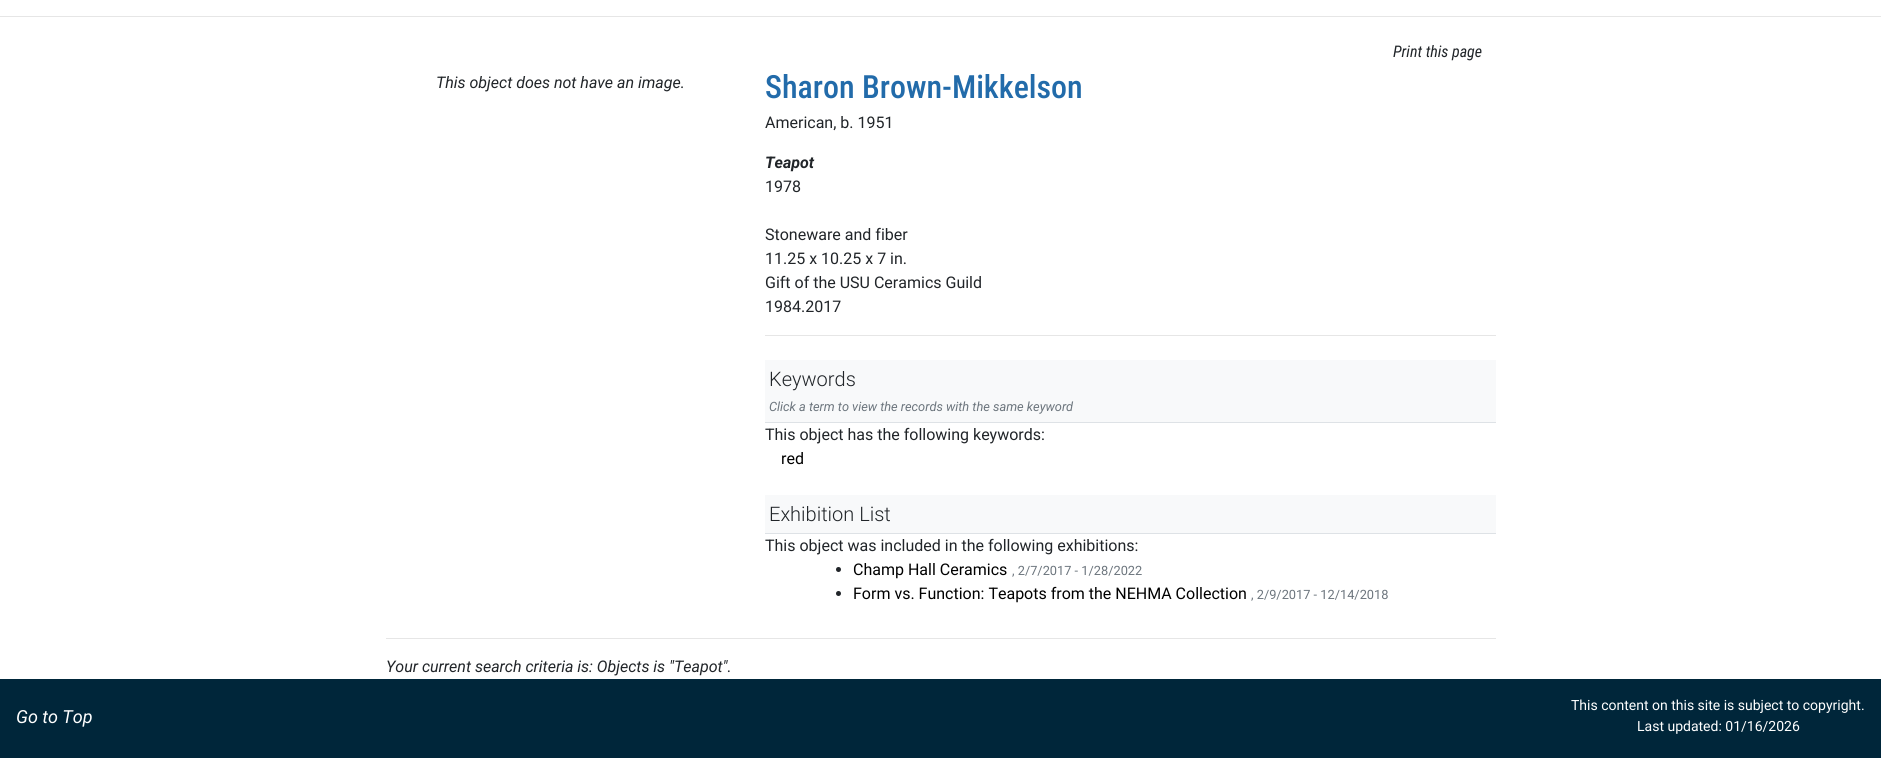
import math
import cairocffi as cairo

surface = cairo.ImageSurface(cairo.FORMAT_RGB24, 1881, 758)
ctx = cairo.Context(surface)
options = cairo.FontOptions()
options.set_hint_metrics(cairo.HINT_METRICS_OFF)
options.set_hint_style(cairo.HINT_STYLE_NONE)
ctx.set_font_options(options)
ctx.set_miter_limit(4)


def rgb(r, g, b):
    ctx.set_source_rgb(r / 255, g / 255, b / 255)


def face(family, size, italic, bold):
    ctx.select_font_face(family, cairo.FONT_SLANT_ITALIC if italic else cairo.FONT_SLANT_NORMAL, cairo.FONT_WEIGHT_BOLD if bold else cairo.FONT_WEIGHT_NORMAL)
    ctx.set_font_size(size)


def label(x, y, s):
    ctx.move_to(x, y)
    ctx.show_text(s)


def rect(x, y, w, h):
    ctx.rectangle(x, y, w, h)
    ctx.fill()


rgb(255, 255, 255)
ctx.paint()
rgb(230, 230, 230)
rect(0, 16, 1881, 1)
face('Roboto Condensed', 16, 1, 0)
rgb(33, 37, 41)
label(1393, 57, 'Print this page')
face('Roboto', 16, 1, 0)
label(436, 88, 'This object does not have an image.')
face('Roboto Condensed Medium', 32, 0, 0)
rgb(34, 107, 170)
label(765, 98, 'Sharon Brown-Mikkelson')
face('Roboto', 16, 0, 0)
rgb(33, 37, 41)
label(765, 128, 'American, b. 1951')
face('Roboto', 16, 1, 1)
label(765, 168, 'Teapot')
face('Roboto', 16, 0, 0)
label(765, 192, '1978')
label(765, 240, 'Stoneware and fiber')
label(765, 264, '11.25 x 10.25 x 7 in.')
label(765, 288, 'Gift of the USU Ceramics Guild')
label(765, 312, '1984.2017')
rgb(230, 230, 230)
rect(765, 335, 731, 1)
rgb(248, 249, 250)
rect(765, 360, 731, 62)
rgb(222, 226, 230)
rect(765, 422, 731, 1)
face('Roboto Light', 20, 0, 0)
rgb(33, 37, 41)
label(769, 386, 'Keywords')
face('Roboto', 12.8, 1, 0)
rgb(108, 117, 125)
label(769, 411, 'Click a term to view the records with the same keyword')
face('Roboto', 16, 0, 0)
rgb(33, 37, 41)
label(765, 440, 'This object has the following keywords:')
rgb(0, 0, 0)
label(781, 464, 'red')
rgb(248, 249, 250)
rect(765, 495, 731, 38)
rgb(222, 226, 230)
rect(765, 533, 731, 1)
face('Roboto Light', 20, 0, 0)
rgb(33, 37, 41)
label(769, 521, 'Exhibition List')
face('Roboto', 16, 0, 0)
label(765, 551, 'This object was included in the following exhibitions:')
ctx.new_path()
ctx.arc(838.5, 569.5, 2.5, 0, 2 * math.pi)
ctx.fill()
rgb(0, 0, 0)
label(853, 575, 'Champ Hall Ceramics')
face('Roboto', 12.8, 0, 0)
rgb(108, 117, 125)
label(1012, 575, ', 2/7/2017 - 1/28/2022')
rgb(33, 37, 41)
ctx.new_path()
ctx.arc(838.5, 593.5, 2.5, 0, 2 * math.pi)
ctx.fill()
face('Roboto', 16, 0, 0)
rgb(0, 0, 0)
label(853, 599, 'Form vs. Function: Teapots from the NEHMA Collection')
face('Roboto', 12.8, 0, 0)
rgb(108, 117, 125)
label(1251, 599, ', 2/9/2017 - 12/14/2018')
rgb(230, 230, 230)
rect(386, 638, 1110, 1)
face('Roboto', 16, 1, 0)
rgb(33, 37, 41)
label(386, 672, 'Your current search criteria is: Objects is "Teapot".')
rgb(0, 38, 58)
rect(0, 679, 1881, 79)
face('Roboto', 18, 1, 0)
rgb(255, 255, 255)
label(16, 723, 'Go to Top')
face('Roboto', 14, 0, 0)
label(1571, 710, 'This content on this site is subject to copyright.')
label(1637, 731, 'Last updated: 01/16/2026')
surface.write_to_png('render.png')
